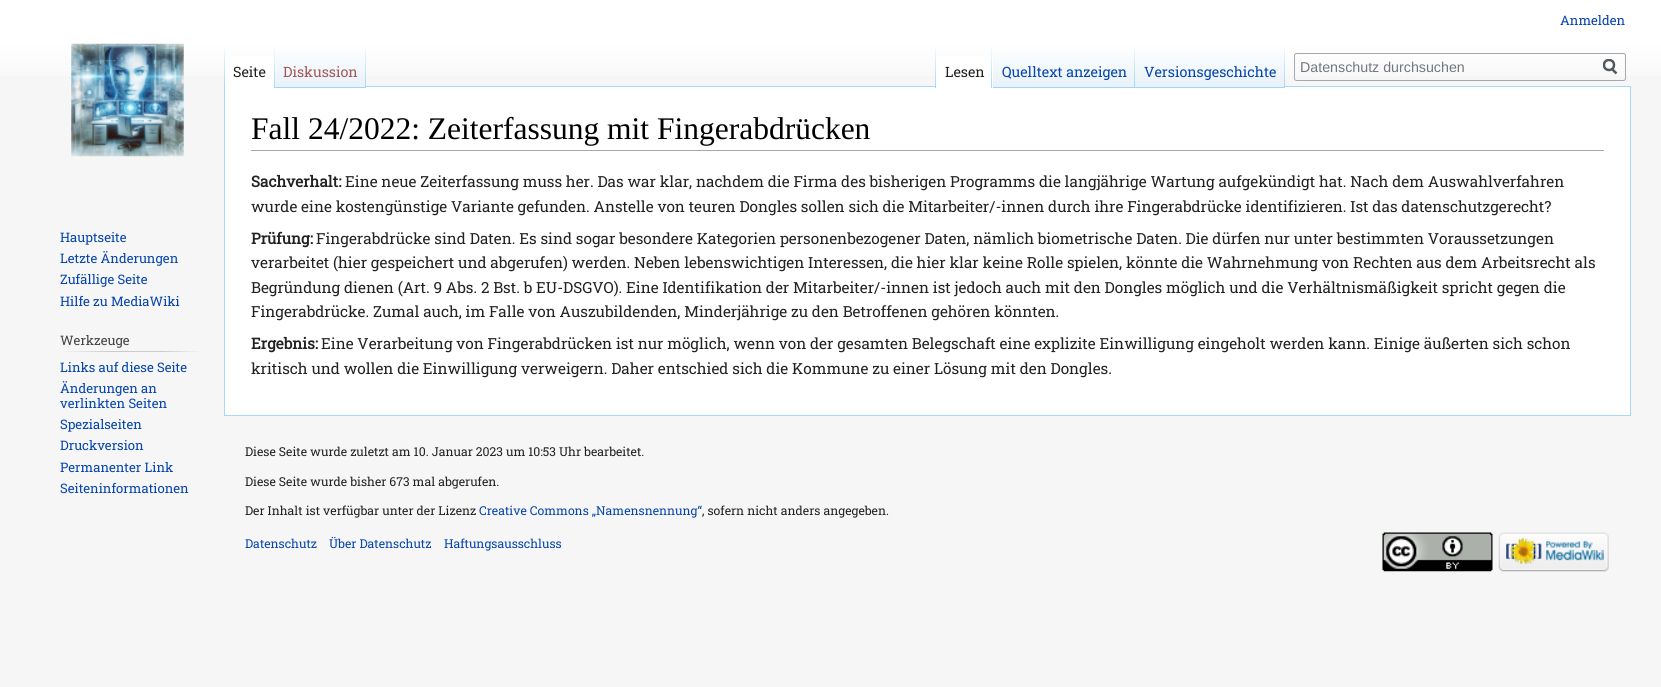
import math
import cairocffi as cairo

surface = cairo.ImageSurface(cairo.FORMAT_RGB24, 1661, 687)
ctx = cairo.Context(surface)
options = cairo.FontOptions()
options.set_hint_metrics(cairo.HINT_METRICS_OFF)
options.set_hint_style(cairo.HINT_STYLE_NONE)
ctx.set_font_options(options)
ctx.set_miter_limit(4)


def rgb(r, g, b):
    ctx.set_source_rgb(r / 255, g / 255, b / 255)


def face(family, size, italic, bold):
    ctx.select_font_face(family, cairo.FONT_SLANT_ITALIC if italic else cairo.FONT_SLANT_NORMAL, cairo.FONT_WEIGHT_BOLD if bold else cairo.FONT_WEIGHT_NORMAL)
    ctx.set_font_size(size)


def label(x, y, s):
    ctx.move_to(x, y)
    ctx.show_text(s)


def rect(x, y, w, h):
    ctx.rectangle(x, y, w, h)
    ctx.fill()


def rrect(x, y, w, h, r):
    ctx.new_sub_path()
    for i, (u, v) in enumerate([(x + w - r, y + h - r), (x + r, y + h - r), (x + r, y + r), (x + w - r, y + r)]):
        ctx.arc(u, v, r, i * math.pi / 2, (i + 1) * math.pi / 2)
    ctx.close_path()


def image(path, x, y, w, h):
    ctx.save()
    ctx.set_source_surface(cairo.ImageSurface.create_from_png(path), x, y)
    ctx.rectangle(x, y, w, h)
    ctx.fill()
    ctx.restore()


rgb(246, 246, 246)
ctx.paint()
gradient = cairo.LinearGradient(831, 0, 831, 88)
gradient.add_color_stop_rgba(0.5, 1, 1, 1, 1)
gradient.add_color_stop_rgba(1, 0.965, 0.965, 0.965, 1)
ctx.set_source(gradient)
rect(0, 0, 1661, 76)
face('Roboto Slab', 13.1, 0, 0)
rgb(6, 69, 173)
label(1560, 25, 'Anmelden')
rgb(255, 255, 255)
ctx.rectangle(224.5, 86.5, 1406, 329)
ctx.fill_preserve()
rgb(167, 215, 249)
ctx.set_line_width(1)
ctx.stroke()
gradient = cairo.LinearGradient(224, 44, 224, 88)
gradient.add_color_stop_rgba(0, 0.655, 0.843, 0.976, 0)
gradient.add_color_stop_rgba(1, 0.655, 0.843, 0.976, 1)
ctx.set_source(gradient)
rect(224, 44, 1, 44)
rgb(255, 255, 255)
rect(225, 56, 49, 31)
gradient = cairo.LinearGradient(274, 44, 274, 88)
gradient.add_color_stop_rgba(0, 1, 1, 1, 1)
gradient.add_color_stop_rgba(1, 0.655, 0.843, 0.976, 1)
ctx.set_source(gradient)
rect(274, 44, 1, 44)
face('Roboto Slab', 14.25, 0, 0)
rgb(34, 34, 34)
label(233, 77, 'Seite')
gradient = cairo.LinearGradient(321, 88, 321, 44)
gradient.add_color_stop_rgba(0, 0.467, 0.757, 0.965, 1)
gradient.add_color_stop_rgba(0.03, 0.91, 0.949, 0.973, 1)
gradient.add_color_stop_rgba(1, 1, 1, 1, 1)
ctx.set_source(gradient)
rect(275, 50, 91, 38)
gradient = cairo.LinearGradient(366, 44, 366, 88)
gradient.add_color_stop_rgba(0, 0.655, 0.843, 0.976, 0)
gradient.add_color_stop_rgba(1, 0.655, 0.843, 0.976, 1)
ctx.set_source(gradient)
rect(365, 44, 1, 44)
rgb(165, 88, 88)
label(283, 77, 'Diskussion')
gradient = cairo.LinearGradient(936, 44, 936, 88)
gradient.add_color_stop_rgba(0, 0.655, 0.843, 0.976, 0)
gradient.add_color_stop_rgba(1, 0.655, 0.843, 0.976, 1)
ctx.set_source(gradient)
rect(935, 44, 1, 44)
rgb(255, 255, 255)
rect(936, 56, 57, 31)
gradient = cairo.LinearGradient(992, 44, 992, 88)
gradient.add_color_stop_rgba(0, 1, 1, 1, 1)
gradient.add_color_stop_rgba(1, 0.655, 0.843, 0.976, 1)
ctx.set_source(gradient)
rect(991, 44, 1, 44)
rgb(34, 34, 34)
label(945, 77, 'Lesen')
gradient = cairo.LinearGradient(1064, 88, 1064, 44)
gradient.add_color_stop_rgba(0, 0.467, 0.757, 0.965, 1)
gradient.add_color_stop_rgba(0.03, 0.91, 0.949, 0.973, 1)
gradient.add_color_stop_rgba(1, 1, 1, 1, 1)
ctx.set_source(gradient)
rect(993, 50, 142, 38)
gradient = cairo.LinearGradient(1134, 44, 1134, 88)
gradient.add_color_stop_rgba(0, 0.655, 0.843, 0.976, 0)
gradient.add_color_stop_rgba(1, 0.655, 0.843, 0.976, 1)
ctx.set_source(gradient)
rect(1134, 44, 1, 44)
rgb(6, 69, 173)
label(1002, 77, 'Quelltext anzeigen')
gradient = cairo.LinearGradient(1210, 88, 1210, 44)
gradient.add_color_stop_rgba(0, 0.467, 0.757, 0.965, 1)
gradient.add_color_stop_rgba(0.03, 0.91, 0.949, 0.973, 1)
gradient.add_color_stop_rgba(1, 1, 1, 1, 1)
ctx.set_source(gradient)
rect(1135, 50, 150, 38)
gradient = cairo.LinearGradient(1284, 44, 1284, 88)
gradient.add_color_stop_rgba(0, 0.655, 0.843, 0.976, 0)
gradient.add_color_stop_rgba(1, 0.655, 0.843, 0.976, 1)
ctx.set_source(gradient)
rect(1284, 44, 1, 44)
rgb(6, 69, 173)
label(1144, 77, 'Versionsgeschichte')
rrect(1294.5, 53.5, 331, 27, 2)
rgb(162, 169, 177)
ctx.stroke()
face('Liberation Sans', 14.25, 0, 0)
rgb(114, 119, 125)
label(1300, 72, 'Datenschutz durchsuchen')
ctx.new_path()
ctx.move_to(1616.5, 73.5)
ctx.line_to(1611.5, 68.5)
rgb(84, 89, 93)
ctx.set_line_width(2.5)
ctx.stroke()
ctx.save()
ctx.rectangle(1603, 59, 15, 16)
ctx.clip()
ctx.arc(1609, 65, 5, 0, 2 * math.pi)
ctx.stroke()
ctx.restore()
image('image0.png', 71, 43, 113, 114)
face('Roboto Slab', 13.1, 0, 0)
rgb(6, 69, 173)
label(60, 242, 'Hauptseite')
label(60, 263, 'Letzte Änderungen')
label(60, 284, 'Zufällige Seite')
label(60, 306, 'Hilfe zu MediaWiki')
rgb(68, 68, 68)
label(60, 345, 'Werkzeuge')
gradient = cairo.LinearGradient(60, 352, 204, 352)
gradient.add_color_stop_rgba(0, 0.965, 0.965, 0.965, 1)
gradient.add_color_stop_rgba(0.35, 0.784, 0.8, 0.82, 1)
gradient.add_color_stop_rgba(0.7, 0.784, 0.8, 0.82, 1)
gradient.add_color_stop_rgba(1, 0.965, 0.965, 0.965, 1)
ctx.set_source(gradient)
rect(60, 351, 144, 1)
rgb(6, 69, 173)
label(60, 372, 'Links auf diese Seite')
label(60, 393, 'Änderungen an')
label(60, 408, 'verlinkten Seiten')
label(60, 429, 'Spezialseiten')
label(60, 450, 'Druckversion')
label(60, 472, 'Permanenter Link')
label(60, 493, 'Seiteninformationen')
rgb(162, 169, 177)
rect(251, 150, 1353, 1)
face('Liberation Serif', 31.5, 0, 0)
rgb(0, 0, 0)
label(251, 139, 'Fall 24/2022: Zeiterfassung mit Fingerabdrücken')
face('Roboto Slab', 15.3, 0, 1)
rgb(34, 34, 34)
label(251, 187, 'Sachverhalt:')
face('Roboto Slab', 15.3, 0, 0)
label(345, 187, 'Eine neue Zeiterfassung muss her. Das war klar, nachdem die Firma des bisherigen Programms die langjährige Wartung aufgekündigt hat. Nach dem Auswahlverfahren')
label(251, 212, 'wurde eine kostengünstige Variante gefunden. Anstelle von teuren Dongles sollen sich die Mitarbeiter/-innen durch ihre Fingerabdrücke identifizieren. Ist das datenschutzgerecht?')
face('Roboto Slab', 15.3, 0, 1)
label(251, 244, 'Prüfung:')
face('Roboto Slab', 15.3, 0, 0)
label(316, 244, 'Fingerabdrücke sind Daten. Es sind sogar besondere Kategorien personenbezogener Daten, nämlich biometrische Daten. Die dürfen nur unter bestimmten Voraussetzungen')
label(251, 268, 'verarbeitet (hier gespeichert und abgerufen) werden. Neben lebenswichtigen Interessen, die hier klar keine Rolle spielen, könnte die Wahrnehmung von Rechten aus dem Arbeitsrecht als')
label(251, 293, 'Begründung dienen (Art. 9 Abs. 2 Bst. b EU-DSGVO). Eine Identifikation der Mitarbeiter/-innen ist jedoch auch mit den Dongles möglich und die Verhältnismäßigkeit spricht gegen die')
label(251, 317, 'Fingerabdrücke. Zumal auch, im Falle von Auszubildenden, Minderjährige zu den Betroffenen gehören könnten.')
face('Roboto Slab', 15.3, 0, 1)
label(251, 349, 'Ergebnis:')
face('Roboto Slab', 15.3, 0, 0)
label(321, 349, 'Eine Verarbeitung von Fingerabdrücken ist nur möglich, wenn von der gesamten Belegschaft eine explizite Einwilligung eingeholt werden kann. Einige äußerten sich schon')
label(251, 374, 'kritisch und wollen die Einwilligung verweigern. Daher entschied sich die Kommune zu einer Lösung mit den Dongles.')
face('Roboto Slab', 12.25, 0, 0)
label(245, 456, 'Diese Seite wurde zuletzt am 10. Januar 2023 um 10:53 Uhr bearbeitet.')
label(245, 486, 'Diese Seite wurde bisher 673 mal abgerufen.')
label(245, 515, 'Der Inhalt ist verfügbar unter der Lizenz')
rgb(6, 69, 173)
label(479, 515, 'Creative Commons „Namensnennung“')
rgb(34, 34, 34)
label(702, 515, ', sofern nicht anders angegeben.')
rgb(6, 69, 173)
label(245, 548, 'Datenschutz')
label(329, 548, 'Über Datenschutz')
label(444, 548, 'Haftungsausschluss')
image('image1.png', 1382, 532, 111, 40)
image('image2.png', 1498, 532, 111, 40)
surface.write_to_png('render.png')
